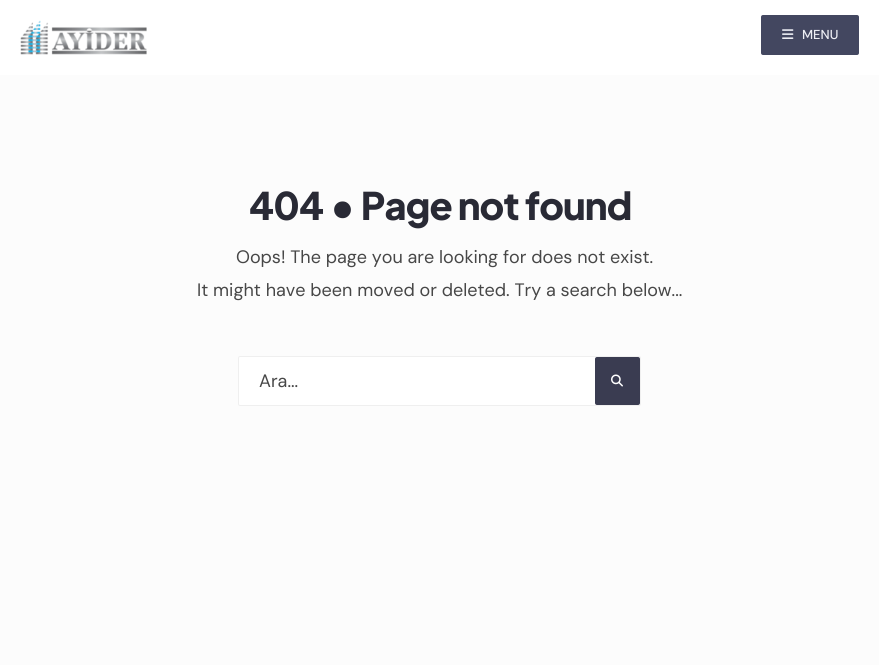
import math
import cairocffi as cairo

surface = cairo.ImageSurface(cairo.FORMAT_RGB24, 879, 665)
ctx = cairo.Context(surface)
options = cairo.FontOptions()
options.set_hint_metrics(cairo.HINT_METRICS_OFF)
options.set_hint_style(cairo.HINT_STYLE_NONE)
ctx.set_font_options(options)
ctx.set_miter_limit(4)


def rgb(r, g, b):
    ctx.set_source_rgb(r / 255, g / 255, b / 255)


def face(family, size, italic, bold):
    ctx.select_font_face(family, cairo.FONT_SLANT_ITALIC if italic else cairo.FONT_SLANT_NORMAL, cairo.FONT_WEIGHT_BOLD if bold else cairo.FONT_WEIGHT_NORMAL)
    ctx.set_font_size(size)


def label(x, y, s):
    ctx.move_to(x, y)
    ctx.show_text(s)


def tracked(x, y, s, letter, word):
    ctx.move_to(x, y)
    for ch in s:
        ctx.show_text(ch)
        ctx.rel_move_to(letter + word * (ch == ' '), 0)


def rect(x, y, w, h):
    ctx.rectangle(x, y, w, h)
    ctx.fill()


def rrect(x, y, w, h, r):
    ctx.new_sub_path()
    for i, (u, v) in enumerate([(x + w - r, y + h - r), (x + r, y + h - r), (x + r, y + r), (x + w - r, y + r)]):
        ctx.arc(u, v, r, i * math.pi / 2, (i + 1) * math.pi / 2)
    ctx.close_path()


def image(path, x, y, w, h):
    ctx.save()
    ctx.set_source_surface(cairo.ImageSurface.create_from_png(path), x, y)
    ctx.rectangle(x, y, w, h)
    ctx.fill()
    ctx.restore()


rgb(252, 252, 252)
ctx.paint()
rgb(255, 255, 255)
rect(0, 0, 879, 75)
image('image0.png', 20, 20, 127, 35)
rgb(67, 71, 96)
rrect(761, 15, 98, 40, 2)
ctx.fill()
image('image1.png', 782, 29, 12, 10)
face('DM Sans Medium', 13, 0, 0)
rgb(237, 238, 244)
label(802, 39, 'MENU')
face('Plus Jakarta Sans ExtraBold', 38, 0, 0)
rgb(41, 42, 53)
tracked(249, 220, '404 • Page not found', -0.9, 0)
face('DM Sans', 18, 0, 0)
rgb(71, 71, 71)
label(236, 263, 'Oops! The page you are looking for does not exist.')
label(197, 296, 'It might have been moved or deleted. Try a search below...')
rgb(255, 255, 255)
rrect(238.5, 356.5, 402, 49, 1.5)
ctx.fill_preserve()
rgb(239, 239, 239)
ctx.set_line_width(1)
ctx.stroke()
rgb(71, 71, 71)
label(259, 387, 'Ara...')
rgb(58, 60, 81)
rrect(595, 357, 45, 48, 2)
ctx.fill()
image('image2.png', 611, 374, 12, 13)
surface.write_to_png('render.png')
